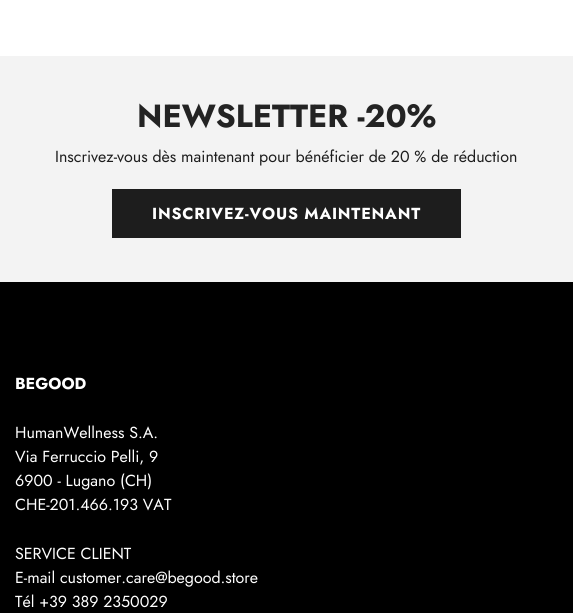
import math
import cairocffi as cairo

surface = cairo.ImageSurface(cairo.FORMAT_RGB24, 573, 613)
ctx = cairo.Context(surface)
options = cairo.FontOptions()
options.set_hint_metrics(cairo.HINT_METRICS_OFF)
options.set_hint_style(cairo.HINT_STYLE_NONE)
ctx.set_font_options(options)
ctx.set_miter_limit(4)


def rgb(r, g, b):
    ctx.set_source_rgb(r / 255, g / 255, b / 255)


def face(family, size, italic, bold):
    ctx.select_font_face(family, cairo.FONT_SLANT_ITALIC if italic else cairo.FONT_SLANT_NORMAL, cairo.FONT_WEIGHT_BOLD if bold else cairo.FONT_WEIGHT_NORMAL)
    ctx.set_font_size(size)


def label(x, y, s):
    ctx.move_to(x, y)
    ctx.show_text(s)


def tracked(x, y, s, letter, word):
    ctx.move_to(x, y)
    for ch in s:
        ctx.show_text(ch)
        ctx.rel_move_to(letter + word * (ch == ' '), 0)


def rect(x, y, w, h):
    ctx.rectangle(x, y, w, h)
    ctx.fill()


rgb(255, 255, 255)
ctx.paint()
rgb(243, 243, 243)
rect(0, 56, 573, 226)
face('Jost', 32, 0, 1)
rgb(35, 35, 35)
label(137, 127, 'NEWSLETTER -20%')
face('Jost', 16, 0, 0)
rgb(29, 29, 29)
label(55, 162, 'Inscrivez-vous dès maintenant pour bénéficier de 20 % de réduction')
rect(112, 189, 349, 49)
face('Jost', 16, 0, 1)
rgb(255, 255, 255)
tracked(152, 219, 'INSCRIVEZ-VOUS MAINTENANT', 0.8, 0)
rgb(0, 0, 0)
rect(0, 282, 573, 331)
rgb(255, 255, 255)
label(15, 389, 'BEGOOD')
face('Jost', 16, 0, 0)
label(15, 438, 'HumanWellness S.A.')
label(15, 462, 'Via Ferruccio Pelli, 9')
label(15, 486, '6900 - Lugano (CH)')
label(15, 510, 'CHE-201.466.193 VAT')
label(15, 559, 'SERVICE CLIENT')
label(15, 583, 'E-mail customer.care@begood.store')
label(15, 607, 'Tél +39 389 2350029')
surface.write_to_png('render.png')
